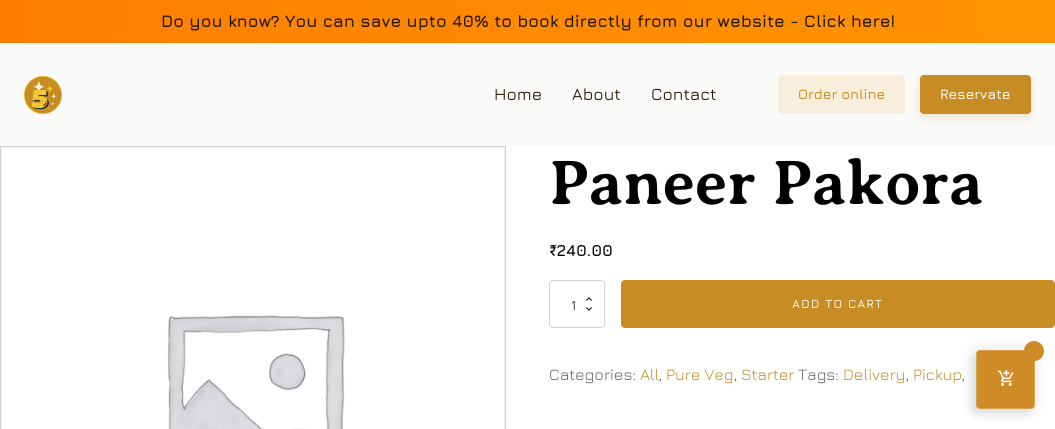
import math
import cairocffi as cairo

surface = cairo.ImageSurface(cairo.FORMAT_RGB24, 1055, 429)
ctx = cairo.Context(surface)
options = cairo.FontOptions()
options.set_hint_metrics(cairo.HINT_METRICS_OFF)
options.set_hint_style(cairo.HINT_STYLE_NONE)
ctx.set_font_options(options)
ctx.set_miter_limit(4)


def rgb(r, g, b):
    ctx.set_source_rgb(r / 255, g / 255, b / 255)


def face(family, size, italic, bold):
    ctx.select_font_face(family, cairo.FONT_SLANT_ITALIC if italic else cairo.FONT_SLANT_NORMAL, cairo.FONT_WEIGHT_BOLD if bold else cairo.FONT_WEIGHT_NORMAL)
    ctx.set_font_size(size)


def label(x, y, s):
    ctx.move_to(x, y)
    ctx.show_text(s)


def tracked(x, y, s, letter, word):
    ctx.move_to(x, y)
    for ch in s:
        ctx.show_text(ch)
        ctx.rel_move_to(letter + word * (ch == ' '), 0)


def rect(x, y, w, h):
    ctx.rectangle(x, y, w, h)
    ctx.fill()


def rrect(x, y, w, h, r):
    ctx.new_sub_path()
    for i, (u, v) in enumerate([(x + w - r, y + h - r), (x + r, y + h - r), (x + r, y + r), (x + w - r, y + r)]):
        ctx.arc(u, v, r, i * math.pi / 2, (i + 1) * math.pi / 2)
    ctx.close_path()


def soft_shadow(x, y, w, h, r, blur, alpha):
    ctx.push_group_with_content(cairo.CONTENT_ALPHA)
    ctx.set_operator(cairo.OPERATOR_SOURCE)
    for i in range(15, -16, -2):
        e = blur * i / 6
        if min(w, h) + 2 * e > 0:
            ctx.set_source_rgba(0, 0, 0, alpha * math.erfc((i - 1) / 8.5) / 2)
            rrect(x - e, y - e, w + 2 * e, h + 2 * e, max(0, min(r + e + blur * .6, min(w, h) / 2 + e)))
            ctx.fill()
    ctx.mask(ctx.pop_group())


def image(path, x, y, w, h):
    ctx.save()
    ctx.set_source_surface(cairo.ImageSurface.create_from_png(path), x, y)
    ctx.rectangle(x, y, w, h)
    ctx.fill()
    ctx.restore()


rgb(255, 255, 255)
ctx.paint()
rgb(250, 250, 248)
rect(0, 43, 1055, 103)
gradient = cairo.LinearGradient(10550, 215, 0, 215)
gradient.add_color_stop_rgba(0, 0.769, 1, 0, 1)
gradient.add_color_stop_rgba(0.25, 0.89, 1, 0, 1)
gradient.add_color_stop_rgba(0.5, 1, 0.867, 0, 1)
gradient.add_color_stop_rgba(0.75, 1, 0.71, 0, 1)
gradient.add_color_stop_rgba(1, 1, 0.494, 0, 1)
ctx.set_source(gradient)
rect(0, 0, 1055, 43)
face('Jura', 16.9, 0, 1)
rgb(38, 27, 7)
label(161, 27, 'Do you know? You can save upto 40% to book directly from our website - Click here!')
image('image0.png', 24, 76, 38, 38)
face('Jura Medium', 16.9, 0, 0)
label(494, 100, 'Home')
label(572, 100, 'About')
label(651, 100, 'Contact')
rgb(248, 238, 220)
rrect(778, 75, 127, 39, 4)
ctx.fill()
face('Jura SemiBold', 14, 0, 0)
rgb(200, 140, 36)
label(798, 99, 'Order online')
rgb(200, 140, 36)
soft_shadow(920, 79, 111, 39, 4, 4.5, 0.2)
rgb(200, 140, 36)
rrect(920, 75, 111, 39, 4)
ctx.fill()
rgb(250, 250, 249)
label(940, 99, 'Reservate')
ctx.rectangle(0.5, 146.5, 505, 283)
rgb(211, 206, 210)
ctx.set_line_width(1)
ctx.stroke()
ctx.rectangle(1.5, 147.5, 503, 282)
rgb(242, 242, 242)
ctx.stroke()
image('image1.png', 167, 315, 178, 114)
face('Averia Serif Libre', 63, 0, 1)
rgb(0, 0, 0)
label(549, 204, 'Paneer Pakora')
face('Jura', 16, 0, 1)
label(549, 256, '₹240.00')
image('image2.png', 586, 297, 6, 4)
image('image3.png', 586, 307, 6, 4)
rrect(549.5, 280.5, 55, 47, 3.5)
rgb(211, 206, 210)
ctx.stroke()
face('Jura', 14, 0, 0)
rgb(0, 0, 0)
label(571, 310, '1')
rgb(200, 140, 36)
rrect(621.5, 280.5, 433, 47, 3.5)
ctx.fill_preserve()
ctx.stroke()
face('Jura', 12, 0, 1)
rgb(248, 238, 220)
tracked(792, 308, 'ADD TO CART', 1, 0)
face('Jura', 16, 0, 0)
rgb(102, 102, 102)
label(549, 380, 'Categories:')
rgb(200, 140, 36)
label(640, 380, 'All')
rgb(102, 102, 102)
label(659, 380, ',')
rgb(200, 140, 36)
label(666, 380, 'Pure Veg')
rgb(102, 102, 102)
label(734, 380, ',')
rgb(200, 140, 36)
label(741, 380, 'Starter')
rgb(102, 102, 102)
label(798, 380, 'Tags:')
rgb(200, 140, 36)
label(843, 380, 'Delivery')
rgb(102, 102, 102)
label(906, 380, ',')
rgb(200, 140, 36)
label(913, 380, 'Pickup')
rgb(102, 102, 102)
label(962, 380, ',')
rgb(0, 0, 0)
soft_shadow(971, 355, 59, 59, 4, 5, 0.1)
soft_shadow(976, 350, 59, 59, 4, 7.5, 0.1)
rgb(207, 139, 38)
rrect(976, 350, 59, 59, 4)
ctx.fill()
rrect(976.5, 350.5, 58, 58, 3.5)
ctx.set_source_rgba(1, 1, 1, 0.2)
ctx.stroke()
rgb(207, 139, 38)
ctx.arc(1034, 351, 10, 0, 2 * math.pi)
ctx.fill()
image('image4.png', 998, 370, 16, 16)
surface.write_to_png('render.png')
